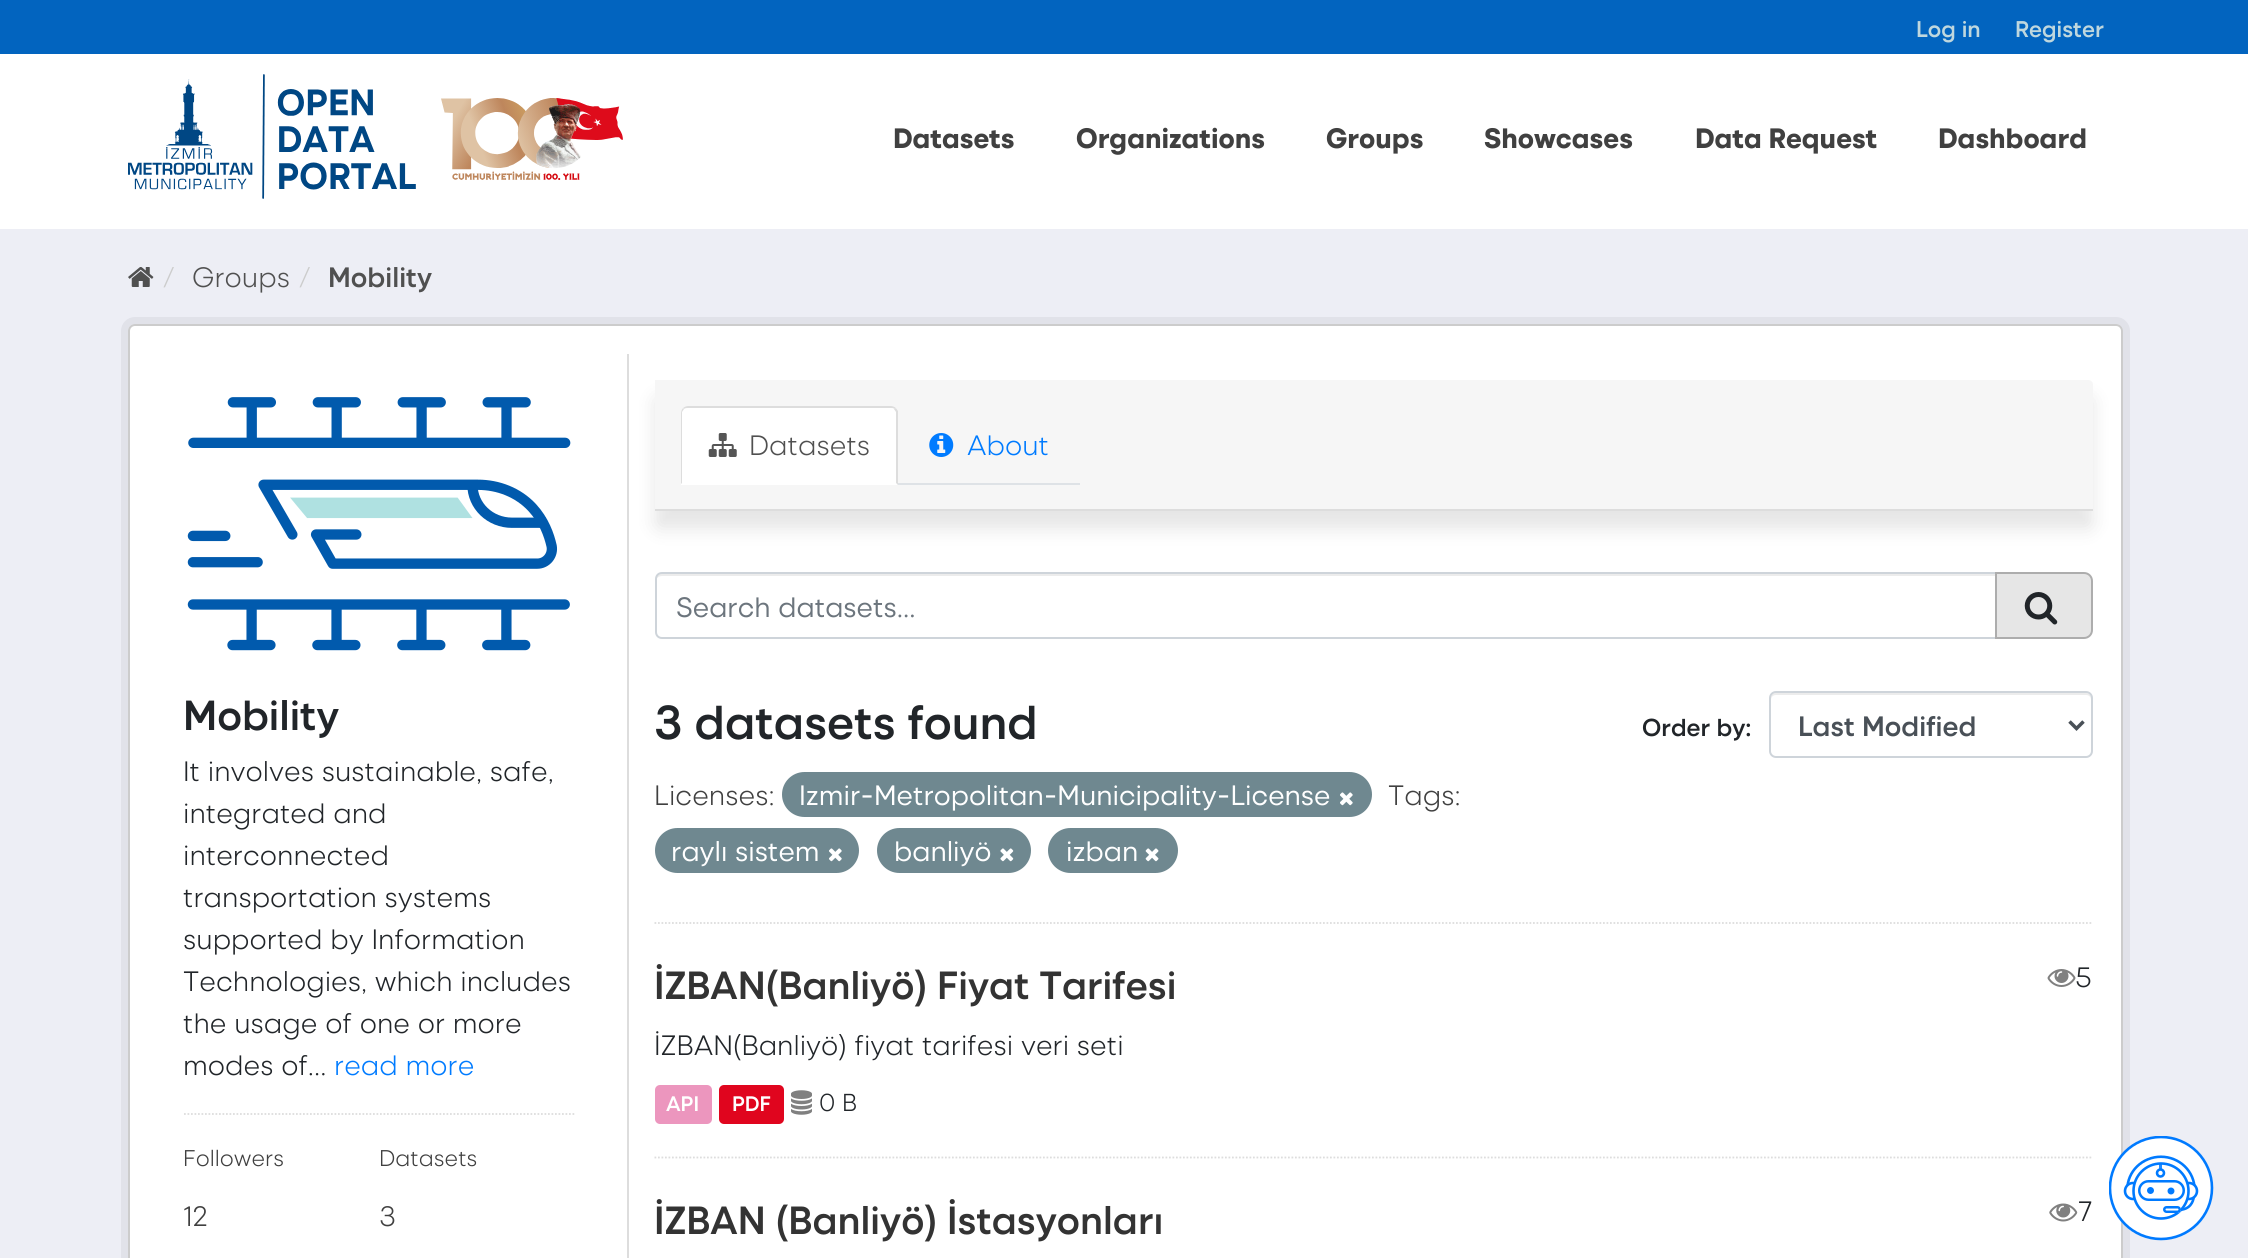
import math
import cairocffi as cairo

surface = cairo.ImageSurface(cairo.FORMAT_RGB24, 2248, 1258)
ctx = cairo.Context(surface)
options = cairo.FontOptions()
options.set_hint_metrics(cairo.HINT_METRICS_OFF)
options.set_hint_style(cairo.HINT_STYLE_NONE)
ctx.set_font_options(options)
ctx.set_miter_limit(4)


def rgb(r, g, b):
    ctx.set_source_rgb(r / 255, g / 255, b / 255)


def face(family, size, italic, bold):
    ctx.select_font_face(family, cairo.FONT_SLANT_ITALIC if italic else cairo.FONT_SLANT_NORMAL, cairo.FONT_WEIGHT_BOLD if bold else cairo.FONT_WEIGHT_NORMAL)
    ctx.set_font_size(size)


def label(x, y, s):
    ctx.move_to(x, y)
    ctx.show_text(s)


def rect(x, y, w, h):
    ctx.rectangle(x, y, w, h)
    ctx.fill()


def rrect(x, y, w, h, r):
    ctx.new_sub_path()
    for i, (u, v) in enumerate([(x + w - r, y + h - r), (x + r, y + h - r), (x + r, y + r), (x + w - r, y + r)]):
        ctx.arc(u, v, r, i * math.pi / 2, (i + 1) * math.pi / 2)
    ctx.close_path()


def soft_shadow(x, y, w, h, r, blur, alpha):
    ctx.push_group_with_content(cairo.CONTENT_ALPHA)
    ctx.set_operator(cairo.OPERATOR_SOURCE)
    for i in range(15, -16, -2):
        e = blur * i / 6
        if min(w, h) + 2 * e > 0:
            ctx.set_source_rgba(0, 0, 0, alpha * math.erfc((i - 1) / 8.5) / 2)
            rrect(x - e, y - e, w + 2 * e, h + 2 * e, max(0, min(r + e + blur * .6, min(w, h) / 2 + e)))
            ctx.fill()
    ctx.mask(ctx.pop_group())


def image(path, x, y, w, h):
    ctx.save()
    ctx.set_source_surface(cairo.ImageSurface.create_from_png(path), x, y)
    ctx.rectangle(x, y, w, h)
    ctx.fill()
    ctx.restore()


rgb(2, 100, 191)
ctx.paint()
face('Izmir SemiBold', 22.75, 0, 0)
rgb(191, 215, 222)
label(1916, 37, 'Log in')
label(2015, 37, 'Register')
rgb(255, 255, 255)
rect(0, 54, 2248, 175)
image('image0.png', 128, 74, 495, 125)
face('Izmir ExtraBold', 28, 0, 0)
rgb(64, 64, 64)
label(893, 148, 'Datasets')
label(1076, 148, 'Organizations')
label(1326, 148, 'Groups')
label(1484, 148, 'Showcases')
label(1695, 148, 'Data Request')
label(1938, 148, 'Dashboard')
rgb(237, 238, 245)
rect(0, 229, 2248, 1029)
image('image1.png', 128, 267, 26, 20)
face('Izmir Light', 28, 0, 0)
rgb(204, 204, 204)
label(162, 287, '/')
rgb(80, 80, 80)
label(192, 287, 'Groups')
rgb(204, 204, 204)
label(298, 287, '/')
face('Izmir SemiBold', 28, 0, 0)
rgb(80, 80, 80)
label(328, 287, 'Mobility')
rrect(124.5, 320.5, 2002, 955, 10.5)
rgb(225, 226, 233)
ctx.set_line_width(7)
ctx.stroke()
rgb(255, 255, 255)
rrect(129, 325, 1993, 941, 6)
ctx.fill_preserve()
rgb(204, 204, 204)
ctx.set_line_width(2)
ctx.stroke()
image('image2.png', 187, 397, 384, 254)
face('Izmir SemiBold', 42, 0, 0)
rgb(33, 37, 41)
label(183, 730, 'Mobility')
face('Izmir Light', 28, 0, 0)
label(183, 781, 'It involves sustainable, safe,')
label(183, 823, 'integrated and')
label(183, 865, 'interconnected')
label(183, 907, 'transportation systems')
label(183, 949, 'supported by Information')
label(183, 991, 'Technologies, which includes')
label(183, 1033, 'the usage of one or more')
label(183, 1075, 'modes of...')
rgb(0, 123, 255)
label(334, 1075, 'read more')
ctx.new_path()
ctx.move_to(184, 1114)
ctx.line_to(576, 1114)
rgb(221, 221, 221)
ctx.set_line_width(1.8)
ctx.set_dash([1.75, 1.75])
ctx.stroke()
face('Izmir Light', 22.75, 0, 0)
rgb(64, 64, 64)
label(183, 1166, 'Followers')
face('Izmir Light', 28, 0, 0)
label(183, 1226, '12')
face('Izmir Light', 22.75, 0, 0)
label(379, 1166, 'Datasets')
face('Izmir Light', 28, 0, 0)
label(379, 1226, '3')
rgb(0, 0, 0)
soft_shadow(655, 397, 1438, 132, 5, 9, 0.1)
rgb(221, 221, 221)
rect(627, 354, 2, 904)
rgb(246, 246, 246)
ctx.new_path()
ctx.move_to(655, 380)
ctx.line_to(2088, 380)
ctx.curve_to(2091, 380, 2093, 382, 2093, 385)
ctx.line_to(2093, 511)
ctx.line_to(655, 511)
ctx.close_path()
ctx.fill()
rgb(221, 221, 221)
rect(655, 509, 1438, 2)
rgb(222, 226, 230)
rect(898, 483, 182, 2)
rgb(255, 255, 255)
ctx.new_path()
ctx.move_to(688, 406)
ctx.line_to(891, 406)
ctx.curve_to(895, 406, 898, 409, 898, 413)
ctx.line_to(898, 485)
ctx.line_to(681, 485)
ctx.line_to(681, 413)
ctx.curve_to(681, 409, 684, 406, 688, 406)
ctx.close_path()
ctx.fill()
rgb(221, 221, 221)
ctx.new_path()
ctx.move_to(688, 406)
ctx.curve_to(686, 406, 684, 407, 683, 408)
ctx.line_to(684, 409)
ctx.curve_to(685, 408, 687, 408, 688, 408)
ctx.line_to(891, 408)
ctx.curve_to(892, 408, 894, 408, 894, 409)
ctx.line_to(896, 408)
ctx.curve_to(895, 407, 893, 406, 891, 406)
ctx.close_path()
ctx.fill()
ctx.new_path()
ctx.move_to(896, 408)
ctx.line_to(898, 411)
ctx.line_to(898, 485)
ctx.line_to(896, 483)
ctx.line_to(896, 412)
ctx.line_to(894, 409)
ctx.close_path()
ctx.fill()
ctx.new_path()
ctx.move_to(683, 408)
ctx.curve_to(682, 409, 681, 411, 681, 413)
ctx.line_to(681, 484)
ctx.line_to(682, 483)
ctx.line_to(682, 412)
ctx.line_to(684, 409)
ctx.close_path()
ctx.fill()
image('image3.png', 708, 433, 29, 24)
rgb(80, 80, 80)
label(749, 455, 'Datasets')
image('image4.png', 929, 433, 25, 24)
rgb(0, 123, 255)
label(967, 455, 'About')
ctx.new_path()
ctx.move_to(654.5, 923)
ctx.line_to(2093, 923)
rgb(221, 221, 221)
ctx.stroke()
rgb(236, 236, 236)
ctx.new_path()
ctx.move_to(662, 576)
ctx.line_to(1995, 576)
ctx.line_to(1995, 574)
ctx.line_to(661, 574)
ctx.curve_to(657, 574, 656, 578, 656, 581)
ctx.curve_to(656, 578, 659, 576, 662, 576)
ctx.close_path()
ctx.fill()
ctx.new_path()
ctx.move_to(662, 573)
ctx.line_to(1996, 573)
ctx.line_to(1996, 638)
ctx.line_to(662, 638)
ctx.curve_to(658.5, 638, 656, 635.5, 656, 632)
ctx.line_to(656, 579)
ctx.curve_to(656, 575.5, 658.5, 573, 662, 573)
ctx.close_path()
rgb(206, 212, 218)
ctx.set_line_width(2)
ctx.set_dash([])
ctx.stroke()
face('Izmir', 28, 0, 0)
rgb(108, 117, 125)
label(676, 617, 'Search datasets...')
rgb(230, 230, 230)
ctx.new_path()
ctx.move_to(1996, 573)
ctx.line_to(2084, 573)
ctx.curve_to(2088.5, 573, 2092, 576.5, 2092, 581)
ctx.line_to(2092, 630)
ctx.curve_to(2092, 634.5, 2088.5, 638, 2084, 638)
ctx.line_to(1996, 638)
ctx.close_path()
ctx.fill_preserve()
rgb(173, 173, 173)
ctx.stroke()
image('image5.png', 2024, 592, 34, 33)
face('Izmir SemiBold', 47.5, 0, 0)
rgb(33, 37, 41)
label(654, 739, '3 datasets found')
face('Izmir SemiBold', 24.5, 0, 0)
label(1642, 736, 'Order by:')
rgb(236, 236, 236)
ctx.new_path()
ctx.move_to(1776, 695)
ctx.line_to(2086, 695)
ctx.curve_to(2089, 695, 2091, 697, 2091, 700)
ctx.line_to(2091, 698)
ctx.curve_to(2091, 695, 2089, 693, 2086, 693)
ctx.line_to(1776, 693)
ctx.curve_to(1773, 693, 1771, 695, 1771, 698)
ctx.line_to(1771, 700)
ctx.curve_to(1771, 697, 1773, 695, 1776, 695)
ctx.close_path()
ctx.fill()
rrect(1770, 692, 322, 65, 6)
rgb(206, 212, 218)
ctx.stroke()
ctx.new_path()
ctx.move_to(2069.5, 721.5)
ctx.line_to(2076.5, 728.5)
ctx.line_to(2083.5, 721.5)
rgb(73, 80, 87)
ctx.set_line_width(3.5)
ctx.stroke()
face('Izmir SemiBold', 28, 0, 0)
label(1798, 736, 'Last Modified')
face('Izmir Light', 28, 0, 0)
rgb(64, 64, 64)
label(654, 805, 'Licenses:')
rgb(111, 136, 144)
rrect(782, 772, 590, 45, 22.5)
ctx.fill()
face('Izmir', 28, 0, 0)
rgb(255, 255, 255)
label(799, 805, 'Izmir-Metropolitan-Municipality-License')
image('image6.png', 1340, 792, 13, 14)
face('Izmir Light', 28, 0, 0)
rgb(64, 64, 64)
label(1388, 805, 'Tags:')
rgb(111, 136, 144)
rrect(655, 828, 204, 45, 22.5)
ctx.fill()
face('Izmir', 28, 0, 0)
rgb(255, 255, 255)
label(671, 861, 'raylı sistem')
image('image6.png', 829, 848, 13, 14)
rgb(111, 136, 144)
rrect(877, 828, 154, 45, 22.5)
ctx.fill()
rgb(255, 255, 255)
label(894, 861, 'banliyö')
image('image7.png', 1000, 848, 14, 14)
rgb(111, 136, 144)
rrect(1048, 828, 130, 45, 22.5)
ctx.fill()
rgb(255, 255, 255)
label(1066, 861, 'izban')
image('image8.png', 1145, 848, 14, 14)
ctx.new_path()
ctx.move_to(654.5, 1157.5)
ctx.line_to(2093, 1157.5)
rgb(221, 221, 221)
ctx.set_line_width(1.8)
ctx.set_dash([1.75, 1.75])
ctx.stroke()
face('Izmir SemiBold', 39.25, 0, 0)
rgb(51, 51, 51)
label(654, 999, 'İZBAN(Banliyö) Fiyat Tarifesi')
image('image9.png', 2047, 969, 29, 18)
face('Izmir Light', 28, 0, 0)
rgb(33, 37, 41)
label(2075, 987, '5')
label(654, 1055, 'İZBAN(Banliyö) fiyat tarifesi veri seti')
rgb(236, 150, 190)
rrect(655, 1085, 57, 39, 5)
ctx.fill()
face('Izmir SemiBold', 21, 0, 0)
rgb(255, 255, 255)
label(666, 1111, 'API')
rgb(224, 5, 30)
rrect(719, 1085, 65, 39, 5)
ctx.fill()
rgb(255, 255, 255)
label(732, 1111, 'PDF')
image('image10.png', 791, 1090, 21, 25)
face('Izmir Light', 24.5, 0, 0)
rgb(33, 37, 41)
label(819, 1111, '0 B')
face('Izmir SemiBold', 39.25, 0, 0)
rgb(51, 51, 51)
label(654, 1234, 'İZBAN (Banliyö) İstasyonları')
image('image11.png', 2049, 1203, 29, 19)
face('Izmir Light', 28, 0, 0)
rgb(33, 37, 41)
label(2078, 1221, '7')
image('image12.png', 2109, 1136, 105, 105)
surface.write_to_png('render.png')
